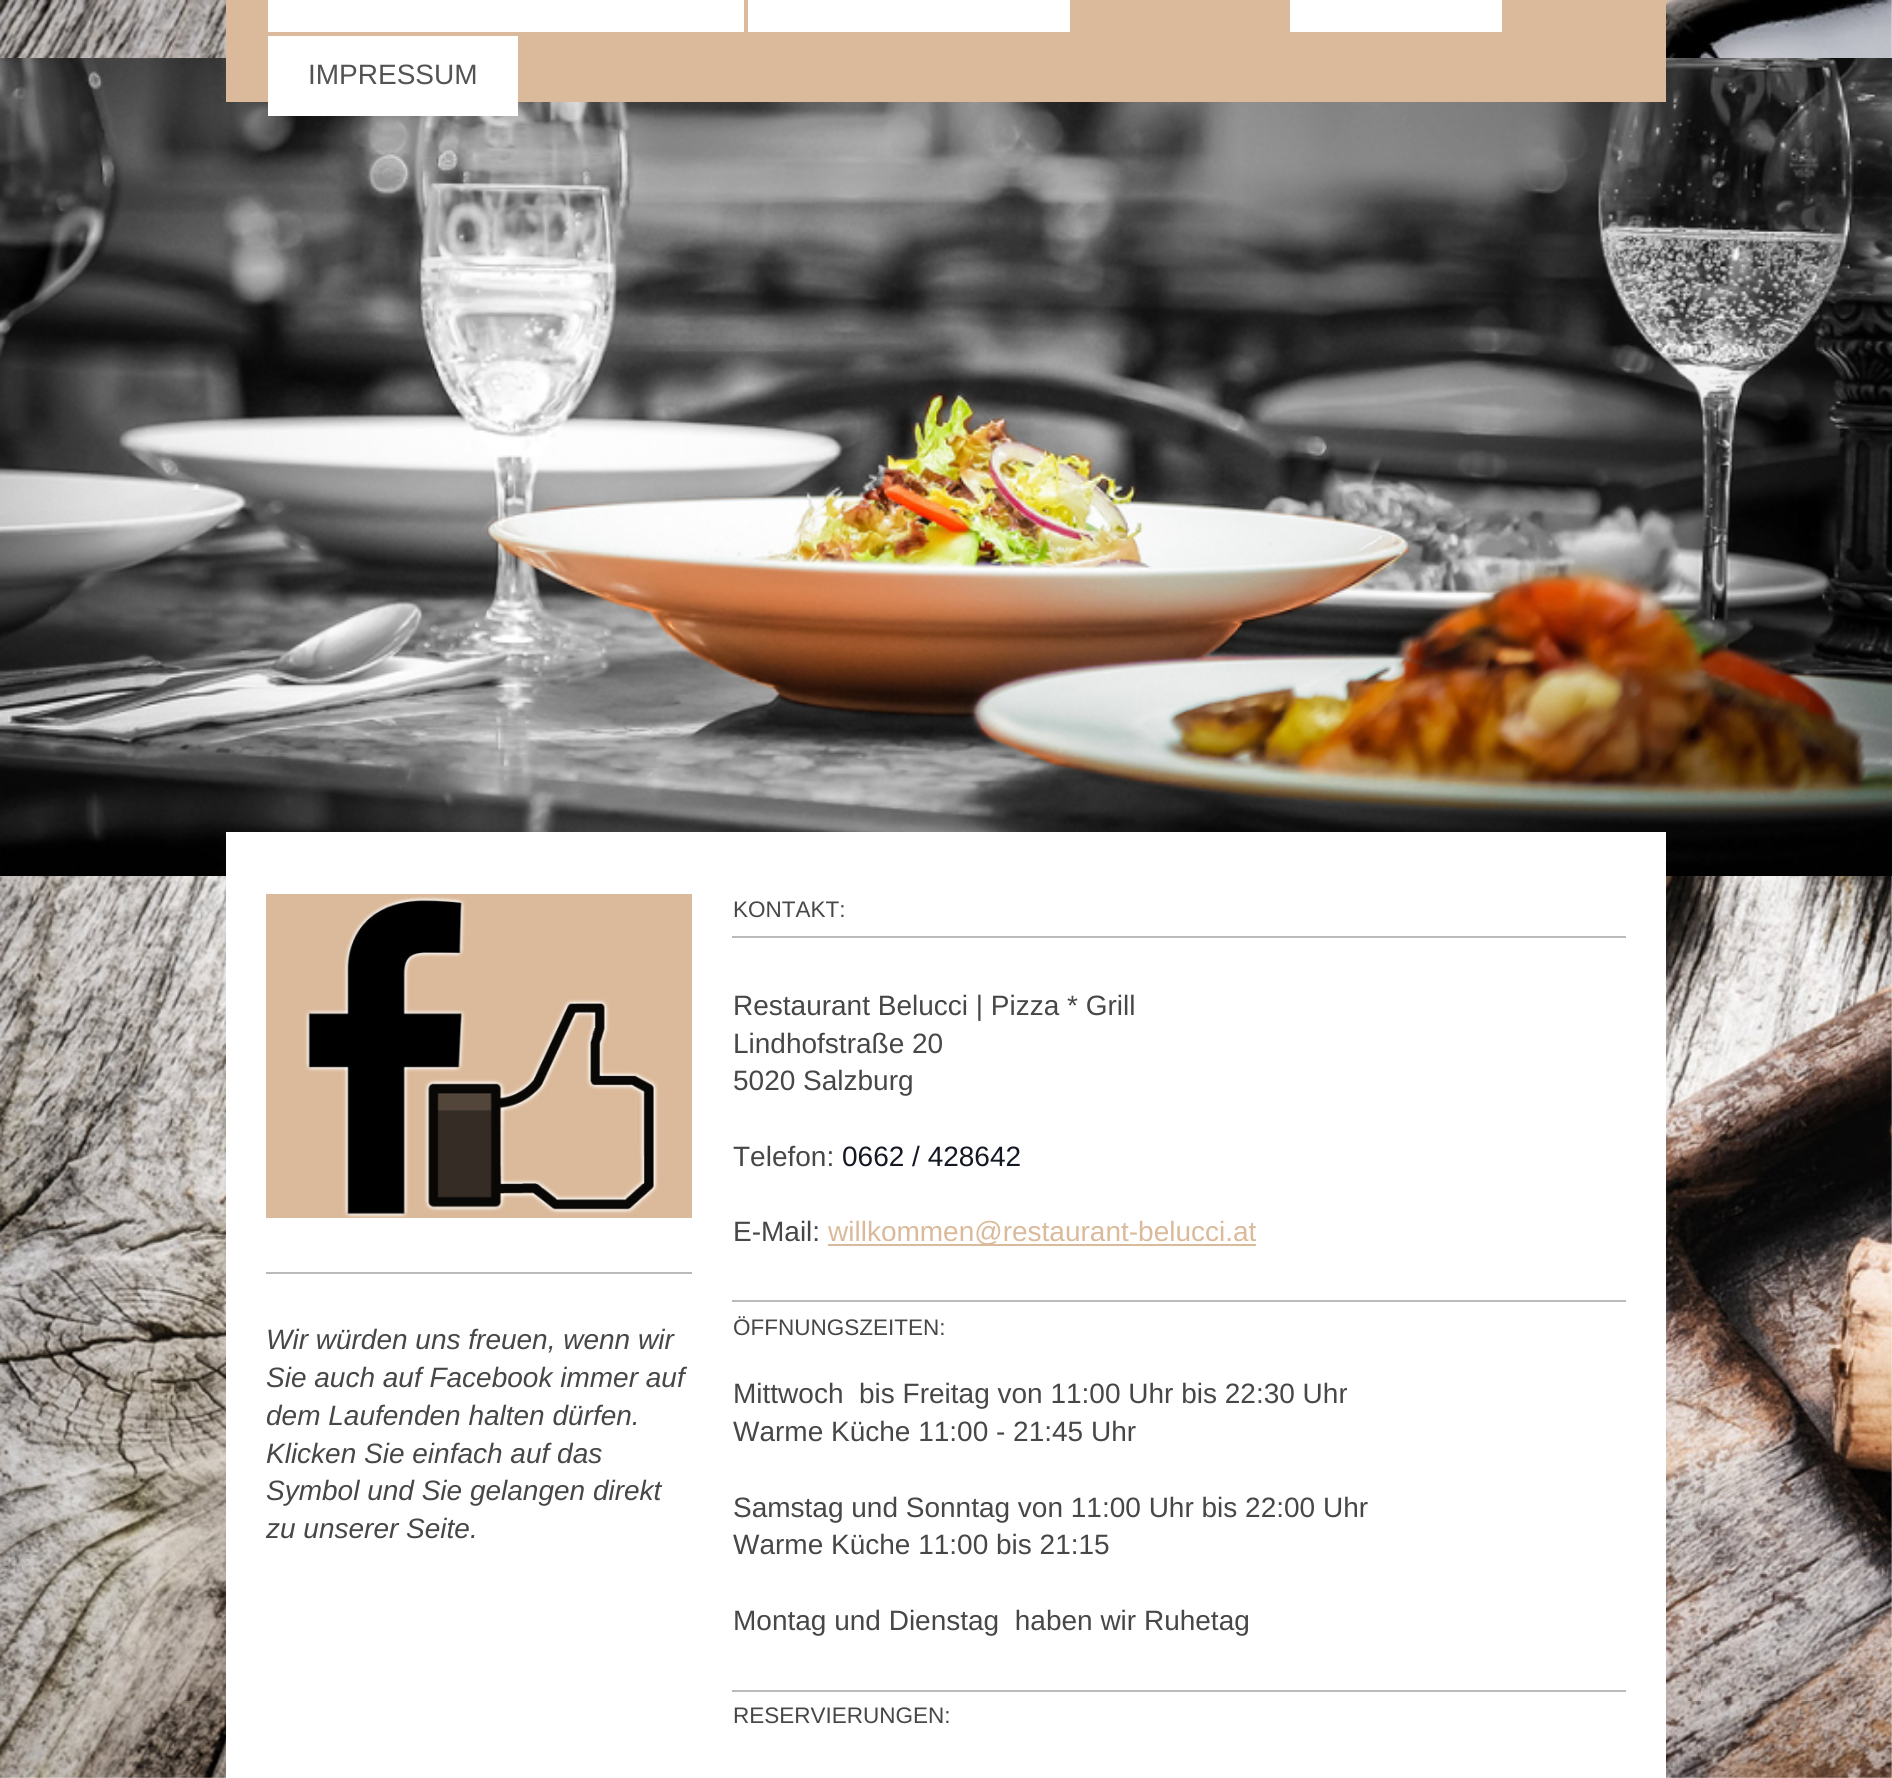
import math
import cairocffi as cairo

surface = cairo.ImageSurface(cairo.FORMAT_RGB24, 1892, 1778)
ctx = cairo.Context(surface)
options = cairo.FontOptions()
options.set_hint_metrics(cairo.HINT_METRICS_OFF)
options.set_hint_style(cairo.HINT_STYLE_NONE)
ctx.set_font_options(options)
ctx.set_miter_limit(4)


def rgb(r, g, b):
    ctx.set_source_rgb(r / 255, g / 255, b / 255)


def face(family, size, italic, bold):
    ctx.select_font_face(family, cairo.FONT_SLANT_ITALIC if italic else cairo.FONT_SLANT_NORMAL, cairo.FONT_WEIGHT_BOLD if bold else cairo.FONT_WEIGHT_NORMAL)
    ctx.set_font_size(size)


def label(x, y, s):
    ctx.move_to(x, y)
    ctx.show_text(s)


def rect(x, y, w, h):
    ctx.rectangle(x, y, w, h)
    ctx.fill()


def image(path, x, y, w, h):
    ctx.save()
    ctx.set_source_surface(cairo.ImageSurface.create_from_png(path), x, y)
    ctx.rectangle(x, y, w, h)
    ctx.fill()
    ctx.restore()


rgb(255, 255, 255)
ctx.paint()
image('image0.png', 0, 0, 1892, 1778)
image('image1.png', 0, 58, 1892, 818)
rgb(219, 186, 155)
rect(226, 0, 1440, 102)
rgb(255, 255, 255)
rect(268, 0, 476, 32)
rect(748, 0, 322, 32)
rect(1290, 0, 212, 32)
rect(268, 36, 250, 80)
face('Liberation Sans', 28, 0, 0)
rgb(83, 83, 83)
label(308, 84, 'IMPRESSUM')
rgb(255, 255, 255)
rect(226, 832, 1440, 946)
image('image2.png', 266, 894, 426, 324)
rgb(186, 186, 186)
rect(266, 1272, 426, 2)
face('Liberation Sans', 28, 1, 0)
rgb(71, 71, 71)
label(266, 1349, 'Wir würden uns freuen, wenn wir')
label(266, 1387, 'Sie auch auf Facebook immer auf')
label(266, 1425, 'dem Laufenden halten dürfen.')
label(266, 1463, 'Klicken Sie einfach auf das')
label(266, 1500, 'Symbol und Sie gelangen direkt')
label(266, 1538, 'zu unserer Seite.')
face('Liberation Sans', 22.5, 0, 0)
label(733, 917, 'KONTAKT:')
rgb(186, 186, 186)
rect(732, 936, 894, 2)
face('Liberation Sans', 28, 0, 0)
rgb(71, 71, 71)
label(733, 1015, 'Restaurant Belucci | Pizza * Grill')
label(733, 1053, 'Lindhofstraße 20')
label(733, 1090, '5020 Salzburg')
label(733, 1166, 'Telefon:')
rgb(20, 24, 35)
label(842, 1166, '0662 / 428642')
rgb(71, 71, 71)
label(733, 1241, 'E-Mail:')
rgb(219, 186, 155)
rect(828, 1244, 428, 2)
label(828, 1241, 'willkommen@restaurant-belucci.at')
rgb(186, 186, 186)
rect(732, 1300, 894, 2)
face('Liberation Sans', 22.5, 0, 0)
rgb(71, 71, 71)
label(733, 1335, 'ÖFFNUNGSZEITEN:')
face('Liberation Sans', 28, 0, 0)
label(733, 1403, 'Mittwoch  bis Freitag von 11:00 Uhr bis 22:30 Uhr')
label(733, 1441, 'Warme Küche 11:00 - 21:45 Uhr')
label(733, 1517, 'Samstag und Sonntag von 11:00 Uhr bis 22:00 Uhr')
label(733, 1554, 'Warme Küche 11:00 bis 21:15')
label(733, 1630, 'Montag und Dienstag  haben wir Ruhetag')
rgb(186, 186, 186)
rect(732, 1690, 894, 2)
face('Liberation Sans', 22.5, 0, 0)
rgb(71, 71, 71)
label(733, 1723, 'RESERVIERUNGEN:')
surface.write_to_png('render.png')
